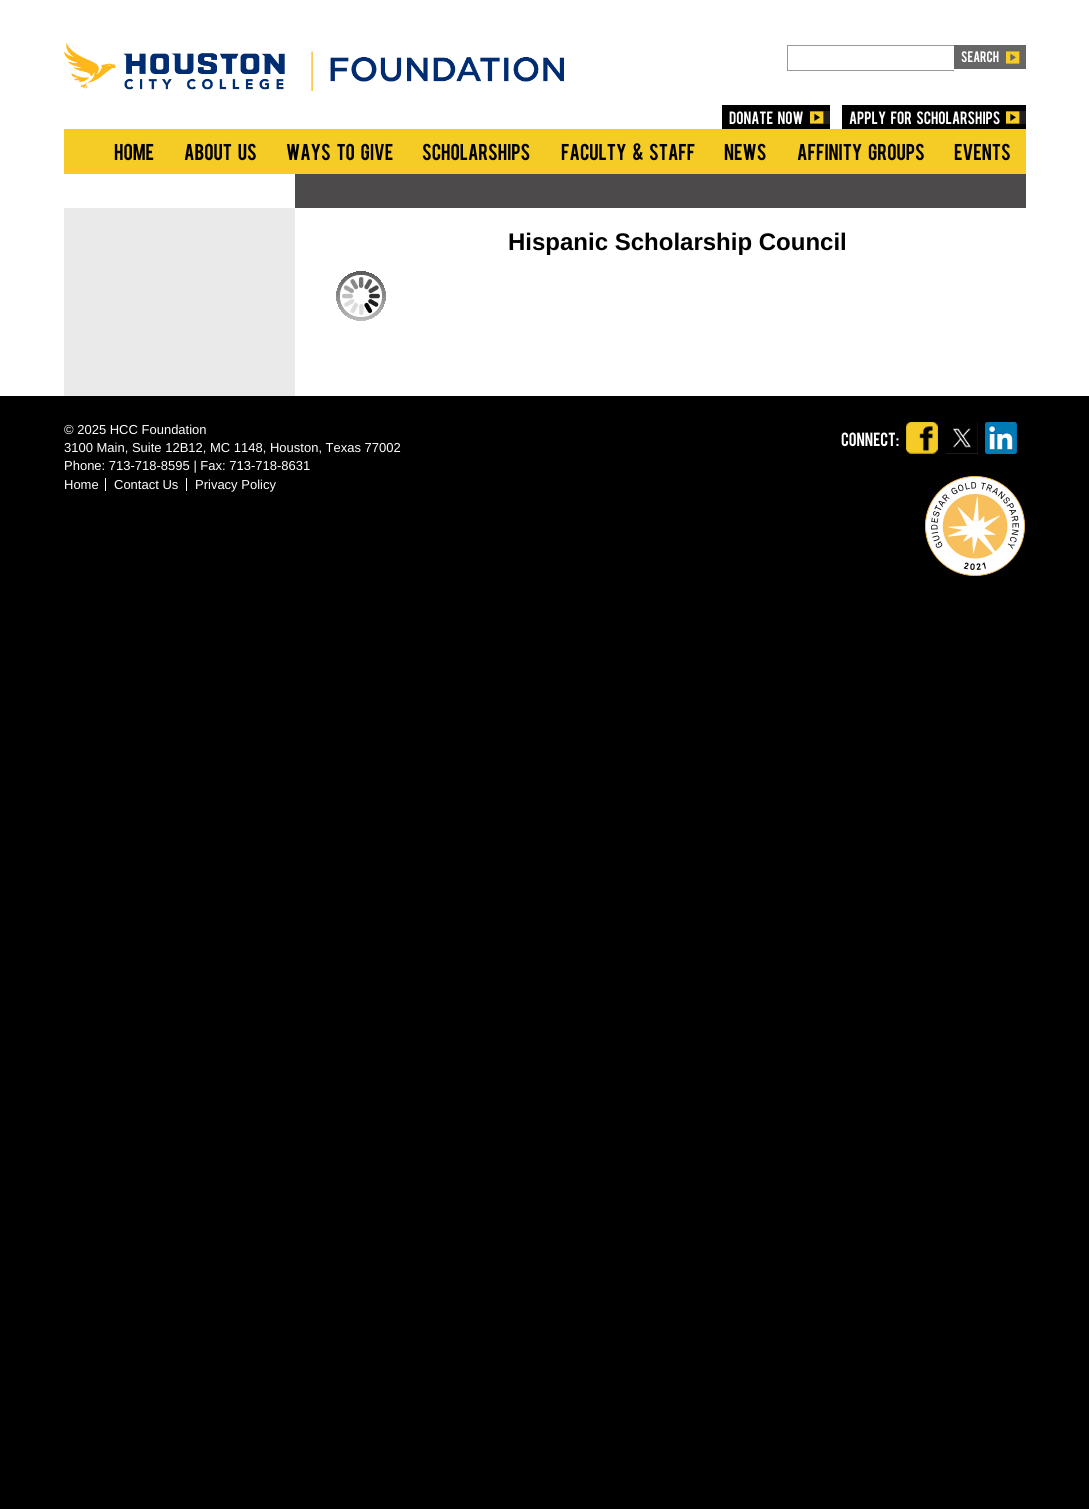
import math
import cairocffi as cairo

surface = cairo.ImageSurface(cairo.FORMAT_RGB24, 1089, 1509)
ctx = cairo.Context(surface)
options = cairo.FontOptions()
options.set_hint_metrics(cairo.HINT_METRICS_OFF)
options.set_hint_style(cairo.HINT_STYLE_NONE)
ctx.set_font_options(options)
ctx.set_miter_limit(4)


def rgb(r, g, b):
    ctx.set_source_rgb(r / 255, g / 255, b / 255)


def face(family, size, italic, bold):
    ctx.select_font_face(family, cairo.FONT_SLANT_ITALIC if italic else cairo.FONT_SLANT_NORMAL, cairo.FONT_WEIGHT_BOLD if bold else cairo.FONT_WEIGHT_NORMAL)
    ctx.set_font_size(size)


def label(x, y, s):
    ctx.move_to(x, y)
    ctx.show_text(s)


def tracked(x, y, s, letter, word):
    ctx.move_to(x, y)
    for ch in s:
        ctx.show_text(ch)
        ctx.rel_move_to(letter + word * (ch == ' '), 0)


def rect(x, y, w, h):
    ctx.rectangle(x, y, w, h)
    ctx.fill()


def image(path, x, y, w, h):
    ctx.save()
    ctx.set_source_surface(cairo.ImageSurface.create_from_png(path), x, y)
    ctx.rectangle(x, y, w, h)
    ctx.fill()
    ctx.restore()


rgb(0, 0, 0)
ctx.paint()
rgb(255, 255, 255)
rect(0, 0, 1089, 396)
image('image0.png', 64, 43, 500, 48)
rgb(153, 153, 153)
rect(787, 45, 167, 1)
rect(787, 70, 167, 1)
rect(787, 45, 1, 26)
rgb(102, 102, 102)
rect(954, 45, 72, 24)
image('image1.png', 1006, 51, 14, 13)
face('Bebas', 12, 0, 0)
rgb(255, 255, 255)
label(961, 62, 'SEARCH')
rgb(0, 0, 0)
rect(722, 105, 108, 24)
image('image2.png', 810, 111, 20, 13)
face('Bebas', 14, 0, 0)
rgb(255, 255, 255)
tracked(729, 124, 'DONATE NOW', 0, 3)
rgb(0, 0, 0)
rect(842, 105, 184, 24)
image('image2.png', 1006, 111, 20, 13)
rgb(255, 255, 255)
tracked(849, 124, 'APPLY FOR SCHOLARSHIPS', 0, 3)
rgb(245, 203, 38)
rect(64, 129, 962, 45)
face('Bebas', 18, 0, 0)
rgb(0, 0, 0)
label(114, 160, 'HOME')
tracked(184, 160, 'ABOUT US', 0, 4)
tracked(286, 160, 'WAYS TO GIVE', 0, 4)
label(422, 160, 'SCHOLARSHIPS')
tracked(561, 160, 'FACULTY & STAFF', 0, 4)
label(724, 160, 'NEWS')
tracked(797, 160, 'AFFINITY GROUPS', 0, 4)
label(954, 160, 'EVENTS')
rgb(76, 74, 74)
rect(295, 174, 731, 34)
rgb(234, 234, 234)
rect(64, 208, 231, 188)
face('Liberation Sans', 24, 0, 1)
rgb(0, 0, 0)
label(508, 250, 'Hispanic Scholarship Council')
image('image3.png', 336, 271, 50, 50)
face('Liberation Sans', 13, 0, 0)
rgb(255, 255, 255)
label(64, 434, '© 2025 HCC Foundation')
label(64, 452, '3100 Main, Suite 12B12, MC 1148, Houston, Texas 77002')
label(64, 470, 'Phone: 713-718-8595 | Fax: 713-718-8631')
rect(105, 478, 1, 13)
label(64, 489, 'Home')
rect(186, 478, 1, 13)
label(114, 489, 'Contact Us')
label(195, 489, 'Privacy Policy')
face('Bebas', 15, 0, 0)
label(841, 446, 'Connect:')
image('image4.png', 906, 422, 32, 32)
image('image5.png', 946, 422, 32, 32)
image('image6.png', 985, 422, 32, 32)
image('image7.png', 925, 476, 100, 100)
surface.write_to_png('render.png')
